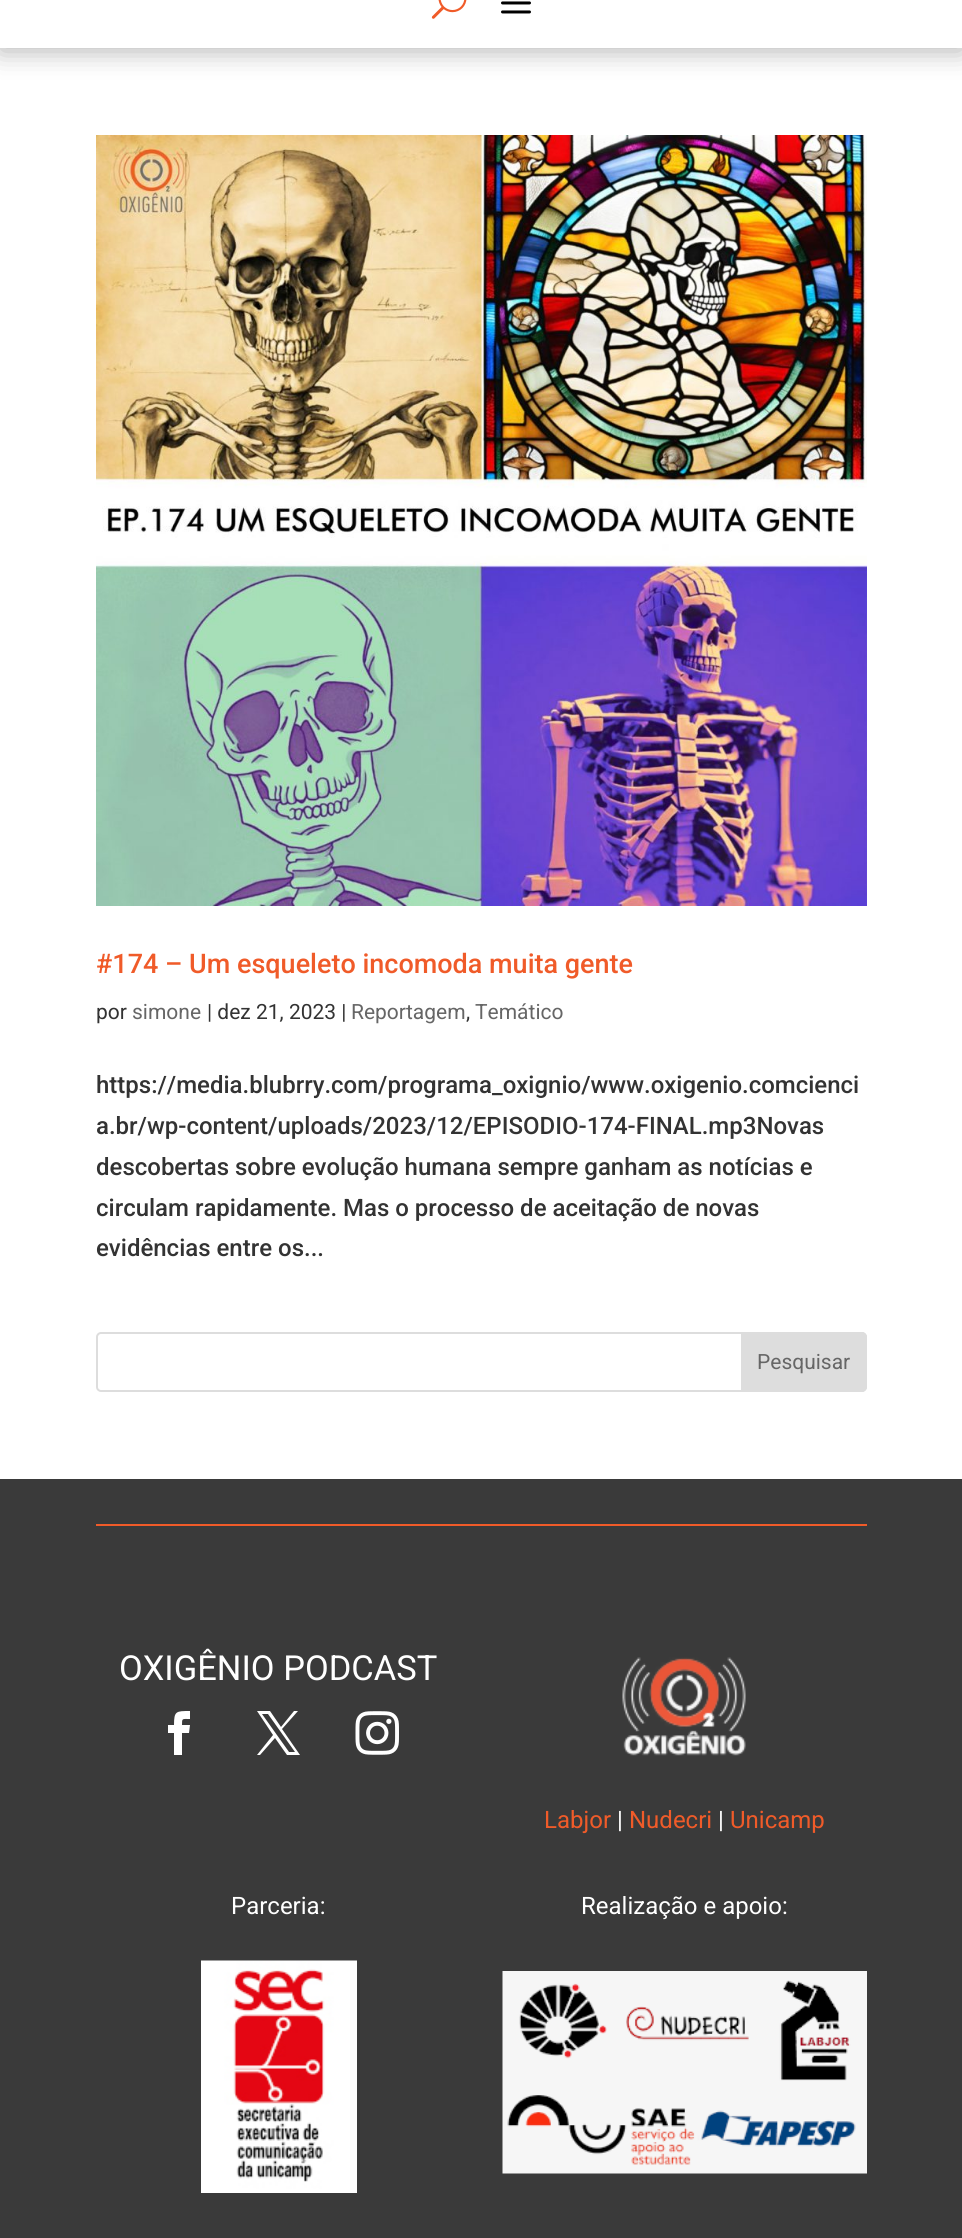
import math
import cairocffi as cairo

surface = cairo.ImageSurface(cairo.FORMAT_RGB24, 962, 2238)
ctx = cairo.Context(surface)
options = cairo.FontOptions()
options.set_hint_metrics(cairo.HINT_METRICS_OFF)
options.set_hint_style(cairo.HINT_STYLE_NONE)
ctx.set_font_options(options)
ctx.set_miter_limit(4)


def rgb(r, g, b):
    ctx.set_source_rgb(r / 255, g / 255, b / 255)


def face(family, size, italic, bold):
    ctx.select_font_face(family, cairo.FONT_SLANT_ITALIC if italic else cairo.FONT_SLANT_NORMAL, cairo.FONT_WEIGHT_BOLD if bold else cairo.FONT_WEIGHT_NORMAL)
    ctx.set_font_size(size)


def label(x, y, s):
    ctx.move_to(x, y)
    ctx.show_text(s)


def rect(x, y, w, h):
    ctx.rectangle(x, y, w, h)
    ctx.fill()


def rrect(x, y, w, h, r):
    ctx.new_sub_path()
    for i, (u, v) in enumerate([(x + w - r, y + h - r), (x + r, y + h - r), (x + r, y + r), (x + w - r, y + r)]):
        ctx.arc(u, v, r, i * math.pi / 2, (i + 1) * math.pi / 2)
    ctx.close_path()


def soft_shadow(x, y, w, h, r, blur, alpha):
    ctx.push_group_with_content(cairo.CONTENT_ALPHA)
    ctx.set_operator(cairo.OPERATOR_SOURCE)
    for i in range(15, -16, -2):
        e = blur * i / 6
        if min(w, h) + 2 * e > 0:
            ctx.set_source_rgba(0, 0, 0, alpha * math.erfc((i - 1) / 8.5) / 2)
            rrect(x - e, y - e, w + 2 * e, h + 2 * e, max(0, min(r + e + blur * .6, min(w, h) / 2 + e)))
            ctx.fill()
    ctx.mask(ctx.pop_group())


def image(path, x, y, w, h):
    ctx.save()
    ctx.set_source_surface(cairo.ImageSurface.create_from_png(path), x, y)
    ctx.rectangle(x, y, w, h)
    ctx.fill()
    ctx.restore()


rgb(255, 255, 255)
ctx.paint()
rgb(0, 0, 0)
soft_shadow(0, -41, 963, 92, 0, 13.5, 0.3)
rgb(255, 255, 255)
rect(0, 0, 962, 48)
image('image0.png', 431, 0, 36, 19)
image('image1.png', 501, 1, 30, 13)
image('image2.png', 96, 135, 771, 771)
face('Roboto Medium', 27, 0, 0)
rgb(240, 91, 41)
label(96, 973, '#174 – Um esqueleto incomoda muita gente')
face('Roboto', 21, 0, 0)
rgb(51, 51, 51)
label(96, 1019, 'por')
rgb(102, 102, 102)
label(132, 1019, 'simone')
rgb(51, 51, 51)
label(207, 1019, '| dez 21, 2023 |')
rgb(102, 102, 102)
label(351, 1019, 'Reportagem')
rgb(51, 51, 51)
label(466, 1019, ',')
rgb(102, 102, 102)
label(475, 1019, 'Temático')
face('Roboto Medium', 24, 0, 0)
rgb(51, 51, 51)
label(96, 1093, 'https://media.blubrry.com/programa_oxignio/www.oxigenio.comcienci')
label(96, 1134, 'a.br/wp-content/uploads/2023/12/EPISODIO-174-FINAL.mp3Novas')
label(96, 1175, 'descobertas sobre evolução humana sempre ganham as notícias e')
label(96, 1216, 'circulam rapidamente. Mas o processo de aceitação de novas')
label(96, 1256, 'evidências entre os...')
rrect(97, 1333, 769, 58, 4)
rgb(221, 221, 221)
ctx.stroke()
ctx.new_path()
ctx.move_to(742, 1333)
ctx.line_to(862, 1333)
ctx.curve_to(864, 1333, 866, 1335, 866, 1337)
ctx.line_to(866, 1387)
ctx.curve_to(866, 1389, 864, 1391, 862, 1391)
ctx.line_to(742, 1391)
ctx.close_path()
ctx.fill_preserve()
ctx.stroke()
face('Roboto', 21, 0, 0)
rgb(102, 102, 102)
label(757, 1369, 'Pesquisar')
rgb(58, 58, 58)
rect(0, 1479, 962, 759)
rgb(240, 91, 41)
rect(96, 1524, 771, 2)
face('Roboto', 34.5, 0, 0)
rgb(255, 255, 255)
label(119, 1680, 'OXIGÊNIO PODCAST')
ctx.new_path()
ctx.move_to(174, 1755)
ctx.line_to(182, 1755)
ctx.line_to(182, 1733)
ctx.line_to(189, 1733)
ctx.line_to(190, 1725)
ctx.line_to(182, 1725)
ctx.curve_to(182, 1718, 182, 1719, 190, 1719)
ctx.line_to(190, 1711)
ctx.curve_to(176, 1711, 174, 1711, 174, 1725)
ctx.line_to(168, 1725)
ctx.line_to(168, 1733)
ctx.line_to(174, 1733)
ctx.close_path()
ctx.fill()
ctx.new_path()
ctx.move_to(257, 1711)
ctx.line_to(273, 1735)
ctx.line_to(257, 1755)
ctx.line_to(260, 1755)
ctx.line_to(275, 1738)
ctx.line_to(287, 1755)
ctx.line_to(300, 1755)
ctx.line_to(282, 1729)
ctx.line_to(298, 1711)
ctx.line_to(294, 1711)
ctx.line_to(281, 1727)
ctx.line_to(270, 1711)
ctx.close_path()
ctx.move_to(262, 1714)
ctx.line_to(268, 1714)
ctx.line_to(295, 1752)
ctx.line_to(289, 1752)
ctx.close_path()
ctx.fill()
image('image3.png', 355, 1711, 44, 44)
image('image4.png', 622, 1657, 124, 99)
face('Roboto', 24, 0, 0)
rgb(240, 91, 41)
label(544, 1828, 'Labjor')
rgb(255, 255, 255)
label(617, 1828, '|')
rgb(240, 91, 41)
label(629, 1828, 'Nudecri')
rgb(255, 255, 255)
label(718, 1828, '|')
rgb(240, 91, 41)
label(730, 1828, 'Unicamp')
rgb(255, 255, 255)
label(231, 1914, 'Parceria:')
image('image5.png', 201, 1960, 156, 233)
label(581, 1914, 'Realização e apoio:')
image('image6.png', 502, 1971, 365, 203)
surface.write_to_png('render.png')
